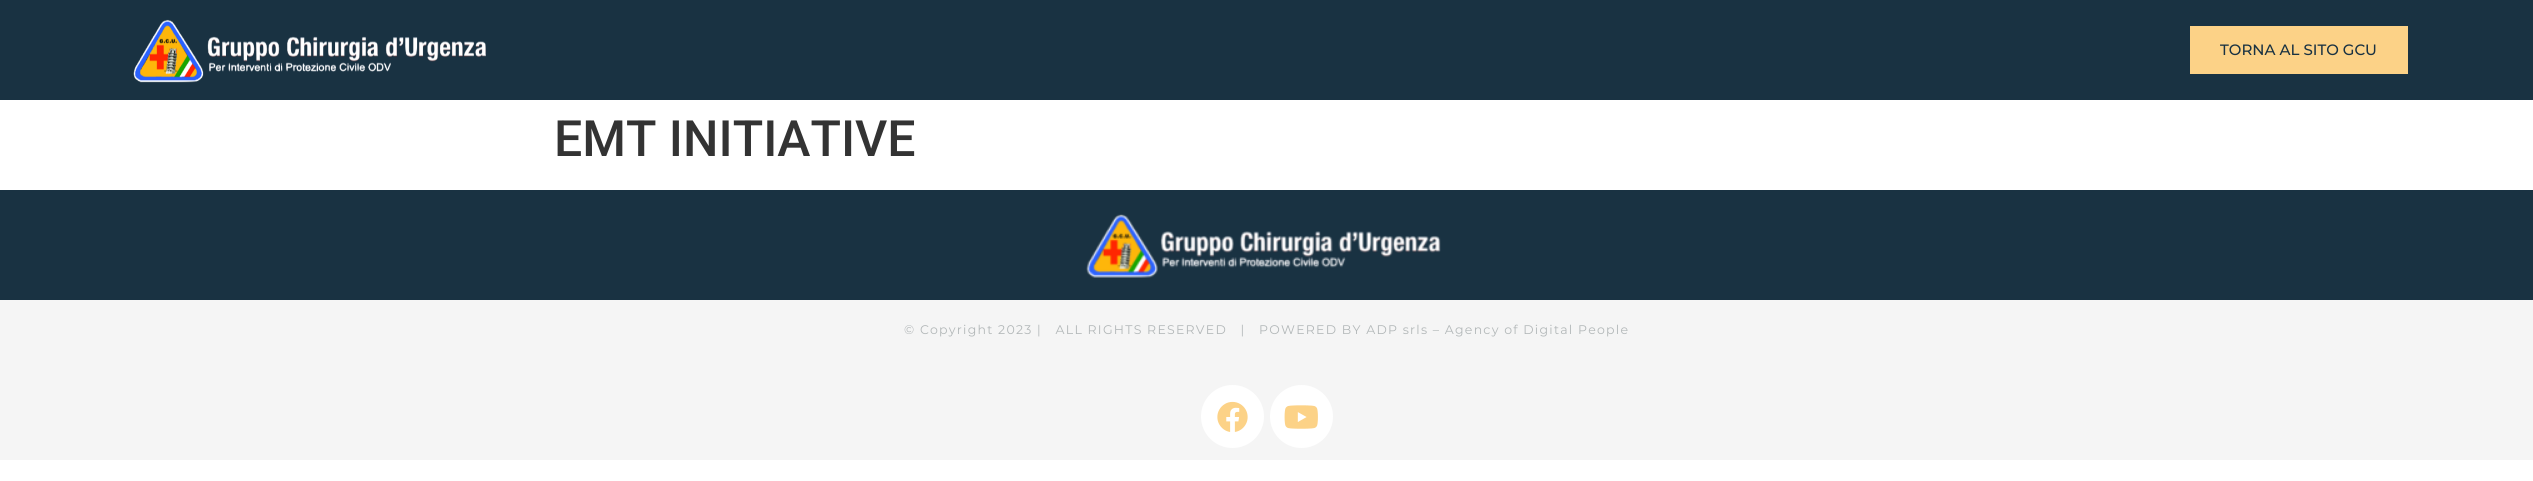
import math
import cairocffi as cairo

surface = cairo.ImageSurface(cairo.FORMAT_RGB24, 2533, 481)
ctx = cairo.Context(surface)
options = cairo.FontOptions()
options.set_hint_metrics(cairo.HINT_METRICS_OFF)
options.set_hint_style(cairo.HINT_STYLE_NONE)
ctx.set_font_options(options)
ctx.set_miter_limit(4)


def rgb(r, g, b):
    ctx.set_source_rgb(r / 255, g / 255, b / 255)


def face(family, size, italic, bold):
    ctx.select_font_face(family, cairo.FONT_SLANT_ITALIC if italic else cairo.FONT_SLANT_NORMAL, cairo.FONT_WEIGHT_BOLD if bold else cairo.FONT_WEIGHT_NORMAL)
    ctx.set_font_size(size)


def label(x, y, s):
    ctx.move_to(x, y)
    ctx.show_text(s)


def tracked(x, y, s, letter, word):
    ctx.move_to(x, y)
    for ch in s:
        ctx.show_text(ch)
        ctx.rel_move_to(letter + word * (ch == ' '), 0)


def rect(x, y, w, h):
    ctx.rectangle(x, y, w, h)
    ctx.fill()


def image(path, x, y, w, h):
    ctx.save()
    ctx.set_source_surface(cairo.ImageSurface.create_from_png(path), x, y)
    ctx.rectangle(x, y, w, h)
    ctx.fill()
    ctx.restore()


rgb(255, 255, 255)
ctx.paint()
rgb(25, 50, 66)
rect(0, 0, 2533, 100)
image('image0.png', 133, 19, 353, 64)
rgb(252, 210, 135)
rect(2190, 26, 218, 48)
face('Montserrat Medium', 15, 0, 0)
rgb(25, 50, 66)
label(2220, 55, 'TORNA AL SITO GCU')
face('Roboto Medium', 50, 0, 0)
rgb(51, 51, 51)
label(554, 156, 'EMT INITIATIVE')
rgb(25, 50, 66)
rect(0, 190, 2533, 110)
image('image1.png', 1086, 214, 355, 64)
rgb(245, 245, 245)
rect(0, 300, 2533, 160)
face('Montserrat', 12.5, 0, 0)
rgb(178, 183, 184)
tracked(904, 334, '© Copyright 2023 |   ALL RIGHTS RESERVED   |   POWERED BY ADP srls – Agency of Digital People', 1.25, 0)
rgb(255, 255, 255)
ctx.new_path()
ctx.arc(1232.5, 416.5, 31.5, 0, 2 * math.pi)
ctx.fill()
image('image2.png', 1217, 401, 31, 31)
ctx.arc(1301.5, 416.5, 31.5, 0, 2 * math.pi)
ctx.fill()
image('image3.png', 1284, 405, 34, 24)
surface.write_to_png('render.png')
